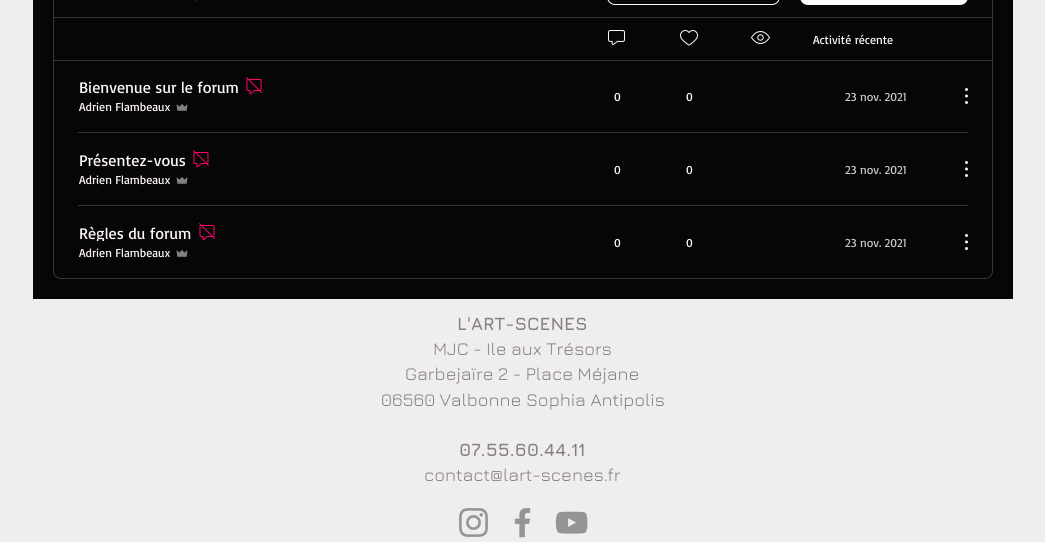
import math
import cairocffi as cairo

surface = cairo.ImageSurface(cairo.FORMAT_RGB24, 1045, 544)
ctx = cairo.Context(surface)
options = cairo.FontOptions()
options.set_hint_metrics(cairo.HINT_METRICS_OFF)
options.set_hint_style(cairo.HINT_STYLE_NONE)
ctx.set_font_options(options)
ctx.set_miter_limit(4)


def rgb(r, g, b):
    ctx.set_source_rgb(r / 255, g / 255, b / 255)


def face(family, size, italic, bold):
    ctx.select_font_face(family, cairo.FONT_SLANT_ITALIC if italic else cairo.FONT_SLANT_NORMAL, cairo.FONT_WEIGHT_BOLD if bold else cairo.FONT_WEIGHT_NORMAL)
    ctx.set_font_size(size)


def label(x, y, s):
    ctx.move_to(x, y)
    ctx.show_text(s)


def rect(x, y, w, h):
    ctx.rectangle(x, y, w, h)
    ctx.fill()


def rrect(x, y, w, h, r):
    ctx.new_sub_path()
    for i, (u, v) in enumerate([(x + w - r, y + h - r), (x + r, y + h - r), (x + r, y + r), (x + w - r, y + r)]):
        ctx.arc(u, v, r, i * math.pi / 2, (i + 1) * math.pi / 2)
    ctx.close_path()


def image(path, x, y, w, h):
    ctx.save()
    ctx.set_source_surface(cairo.ImageSurface.create_from_png(path), x, y)
    ctx.rectangle(x, y, w, h)
    ctx.fill()
    ctx.restore()


rgb(255, 255, 255)
ctx.paint()
rgb(240, 237, 237)
rect(0, 0, 1045, 542)
rgb(6, 6, 6)
rect(33, 0, 980, 299)
rrect(53.5, -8.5, 939, 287, 7.5)
rgb(56, 54, 55)
ctx.set_line_width(1)
ctx.stroke()
rect(196, 0, 1, 1)
rrect(607.5, -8.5, 172, 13, 7.5)
rgb(255, 255, 255)
ctx.stroke()
rrect(800, -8, 168, 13, 8)
ctx.fill()
rgb(56, 54, 55)
rect(54, 17, 938, 1)
image('image0.png', 608, 30, 17, 15)
image('image1.png', 680, 30, 18, 16)
image('image2.png', 751, 31, 19, 13)
face('Basic', 12, 0, 0)
rgb(255, 247, 253)
label(813, 44, 'Activité récente')
rgb(56, 54, 55)
rect(54, 60, 938, 1)
face('Basic', 16, 0, 0)
rgb(255, 247, 253)
label(79, 93, 'Bienvenue sur le forum')
image('image3.png', 246, 77, 16, 18)
face('Basic', 12, 0, 0)
label(79, 111, 'Adrien Flambeaux')
image('image4.png', 176, 104, 12, 7)
label(614, 101, '0')
label(686, 101, '0')
rgb(205, 199, 204)
label(845, 101, '23 nov. 2021')
image('image5.png', 965, 88, 3, 16)
rgb(56, 54, 55)
rect(78, 132, 890, 1)
face('Basic', 16, 0, 0)
rgb(255, 247, 253)
label(79, 166, 'Présentez-vous')
image('image3.png', 193, 150, 16, 18)
face('Basic', 12, 0, 0)
label(79, 184, 'Adrien Flambeaux')
image('image4.png', 176, 177, 12, 7)
label(614, 174, '0')
label(686, 174, '0')
rgb(205, 199, 204)
label(845, 174, '23 nov. 2021')
image('image5.png', 965, 161, 3, 16)
rgb(56, 54, 55)
rect(78, 205, 890, 1)
ctx.save()
ctx.rectangle(79, 225, 112, 16)
ctx.clip()
face('Basic', 16, 0, 0)
rgb(255, 247, 253)
label(79, 239, 'Règles du forum')
ctx.restore()
image('image3.png', 199, 223, 16, 18)
rgb(255, 247, 253)
label(79, 257, 'Adrien Flambeaux')
image('image4.png', 176, 250, 12, 7)
label(614, 247, '0')
label(686, 247, '0')
rgb(205, 199, 204)
label(845, 247, '23 nov. 2021')
image('image5.png', 965, 234, 3, 16)
face('Jura', 18, 0, 1)
rgb(131, 127, 130)
label(457, 330, 'L\'ART-SCENES')
face('Jura', 18, 0, 0)
label(433, 355, 'MJC - Ile aux Trésors')
label(405, 380, 'Garbejaïre 2 - Place Méjane')
label(381, 406, '06560 Valbonne Sophia Antipolis')
face('Jura', 18, 0, 1)
label(459, 456, '07.55.60.44.11')
face('Jura', 18, 0, 0)
label(424, 481, 'contact@lart-scenes.fr')
image('image6.png', 459, 508, 29, 29)
image('image7.png', 514, 508, 17, 30)
image('image8.png', 555, 511, 33, 23)
surface.write_to_png('render.png')
